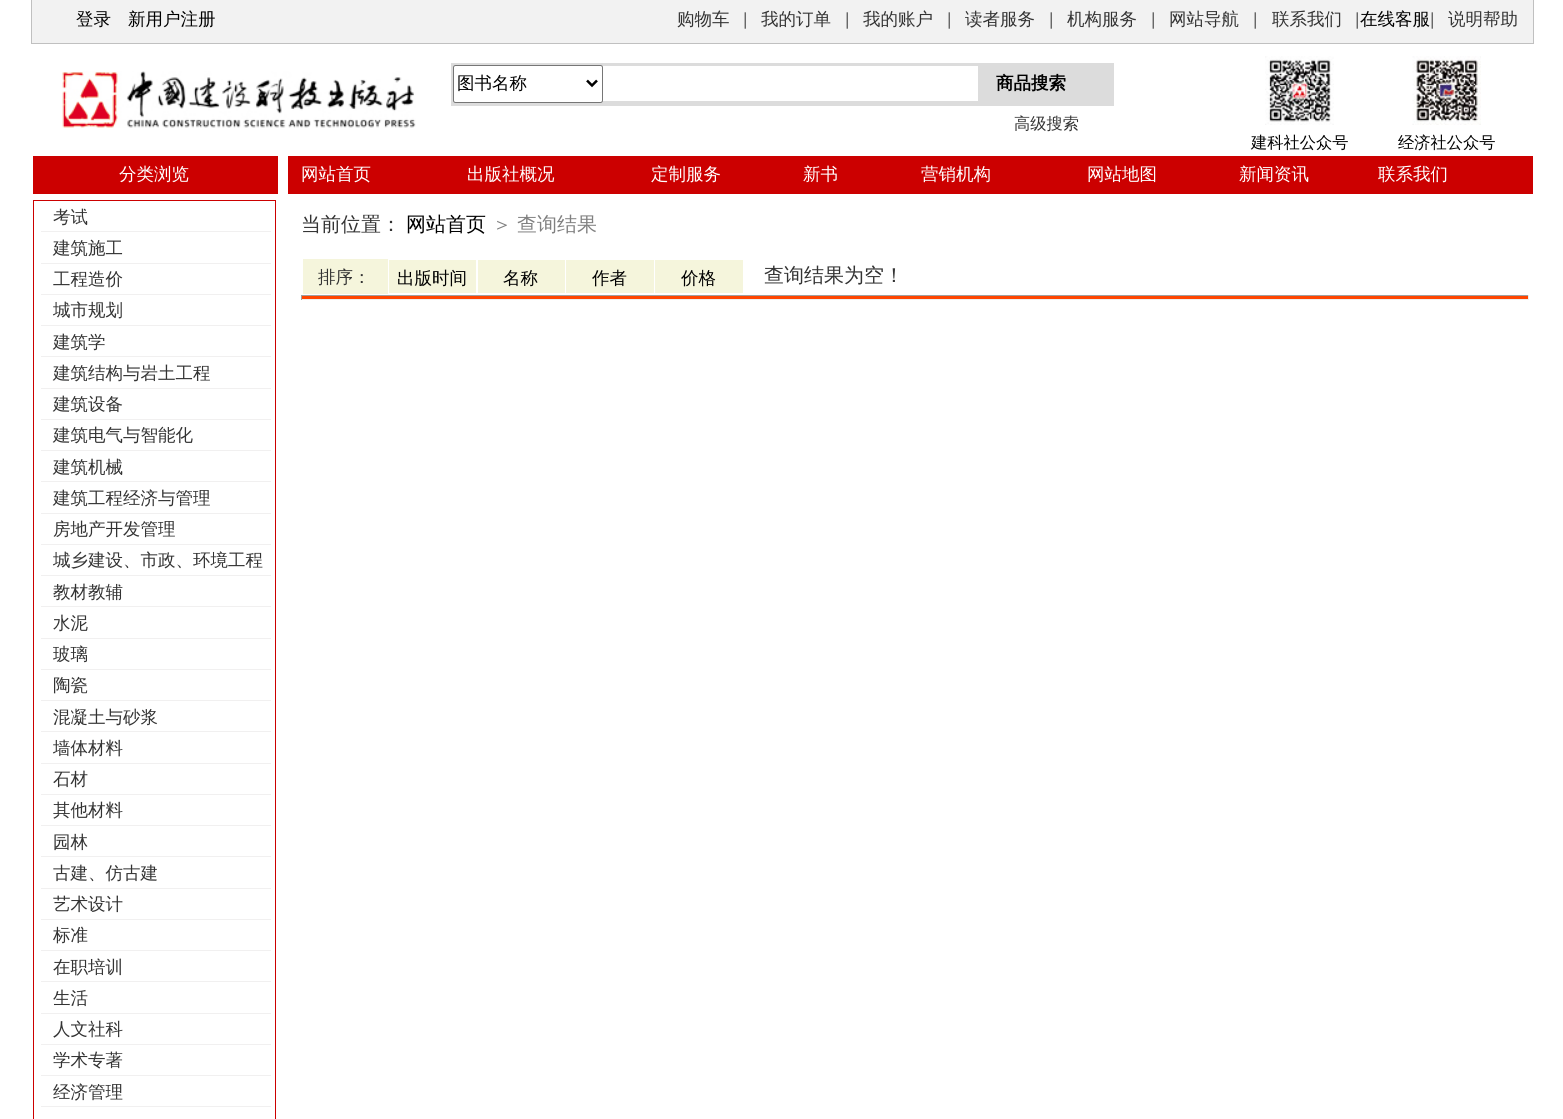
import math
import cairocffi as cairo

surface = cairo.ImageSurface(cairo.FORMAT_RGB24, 1563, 1119)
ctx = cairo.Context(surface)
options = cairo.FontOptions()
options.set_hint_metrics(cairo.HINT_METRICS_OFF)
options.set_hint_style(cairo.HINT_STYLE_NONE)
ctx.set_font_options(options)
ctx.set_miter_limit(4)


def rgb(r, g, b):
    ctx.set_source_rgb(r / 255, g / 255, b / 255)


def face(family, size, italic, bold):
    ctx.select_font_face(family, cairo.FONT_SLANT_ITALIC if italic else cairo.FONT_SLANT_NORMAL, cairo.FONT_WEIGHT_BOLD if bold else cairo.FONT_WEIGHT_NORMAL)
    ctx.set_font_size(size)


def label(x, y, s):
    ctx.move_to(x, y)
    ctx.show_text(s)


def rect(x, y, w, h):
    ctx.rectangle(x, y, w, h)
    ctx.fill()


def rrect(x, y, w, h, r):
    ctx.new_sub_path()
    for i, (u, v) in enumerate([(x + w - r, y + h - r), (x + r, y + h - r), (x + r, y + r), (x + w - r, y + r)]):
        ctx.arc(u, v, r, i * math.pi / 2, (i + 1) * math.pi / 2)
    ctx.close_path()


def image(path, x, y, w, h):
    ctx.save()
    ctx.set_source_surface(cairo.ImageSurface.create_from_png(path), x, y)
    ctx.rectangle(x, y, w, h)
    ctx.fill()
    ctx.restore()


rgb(255, 255, 255)
ctx.paint()
rgb(242, 242, 242)
rect(32, 0, 1501, 43)
rgb(192, 192, 192)
rect(1533, 0, 1, 44)
rect(31, 43, 1503, 1)
rect(31, 0, 1, 44)
face('WenQuanYi Zen Hei Medium', 17.5, 0, 0)
rgb(0, 0, 0)
label(76, 25, '登录')
label(128, 25, '新用户注册')
rgb(51, 51, 51)
label(677, 25, '购物车')
face('Liberation Sans', 17.5, 0, 0)
rgb(102, 102, 102)
label(743, 25, '|')
face('WenQuanYi Zen Hei Medium', 17.5, 0, 0)
rgb(51, 51, 51)
label(761, 25, '我的订单')
face('Liberation Sans', 17.5, 0, 0)
rgb(102, 102, 102)
label(845, 25, '|')
face('WenQuanYi Zen Hei Medium', 17.5, 0, 0)
rgb(51, 51, 51)
label(863, 25, '我的账户')
face('Liberation Sans', 17.5, 0, 0)
rgb(102, 102, 102)
label(947, 25, '|')
face('WenQuanYi Zen Hei Medium', 17.5, 0, 0)
rgb(51, 51, 51)
label(965, 25, '读者服务')
face('Liberation Sans', 17.5, 0, 0)
rgb(102, 102, 102)
label(1049, 25, '|')
face('WenQuanYi Zen Hei Medium', 17.5, 0, 0)
rgb(51, 51, 51)
label(1067, 25, '机构服务')
face('Liberation Sans', 17.5, 0, 0)
rgb(102, 102, 102)
label(1151, 25, '|')
face('WenQuanYi Zen Hei Medium', 17.5, 0, 0)
rgb(51, 51, 51)
label(1169, 25, '网站导航')
face('Liberation Sans', 17.5, 0, 0)
rgb(102, 102, 102)
label(1253, 25, '|')
face('WenQuanYi Zen Hei Medium', 17.5, 0, 0)
rgb(51, 51, 51)
label(1272, 25, '联系我们')
face('Liberation Sans', 17.5, 0, 0)
rgb(102, 102, 102)
label(1355, 25, '|')
face('WenQuanYi Zen Hei Medium', 17.5, 0, 0)
rgb(0, 0, 0)
label(1360, 25, '在线客服')
face('Liberation Sans', 17.5, 0, 0)
rgb(102, 102, 102)
label(1430, 25, '|')
face('WenQuanYi Zen Hei Medium', 17.5, 0, 0)
rgb(51, 51, 51)
label(1448, 25, '说明帮助')
image('image0.png', 62, 71, 354, 57)
rgb(220, 220, 220)
rect(451, 63, 663, 43)
rgb(255, 255, 255)
rrect(453.5, 65.5, 149, 37, 2)
ctx.fill_preserve()
rgb(118, 118, 118)
ctx.set_line_width(1)
ctx.stroke()
ctx.new_path()
ctx.move_to(587, 80.5)
ctx.line_to(592, 85.5)
ctx.line_to(597, 80.5)
rgb(0, 0, 0)
ctx.set_line_width(2.5)
ctx.stroke()
label(457, 89, '图书名称')
rgb(255, 255, 255)
rect(603, 66, 375, 35)
face('WenQuanYi Zen Hei', 17.5, 0, 1)
rgb(0, 0, 0)
label(996, 89, '商品搜索')
face('WenQuanYi Zen Hei Medium', 16.25, 0, 0)
rgb(51, 51, 51)
label(1014, 129, '高级搜索')
image('image1.png', 1265, 56, 69, 69)
rgb(0, 0, 0)
label(1251, 148, '建科社公众号')
image('image2.png', 1412, 56, 69, 69)
label(1398, 148, '经济社公众号')
rgb(204, 0, 0)
rect(33, 156, 1500, 38)
face('WenQuanYi Zen Hei Medium', 17.5, 0, 0)
rgb(255, 255, 255)
label(119, 180, '分类浏览')
rect(278, 156, 10, 38)
label(301, 180, '网站首页')
label(467, 180, '出版社概况')
label(651, 180, '定制服务')
label(803, 180, '新书')
label(921, 180, '营销机构')
label(1087, 180, '网站地图')
label(1239, 180, '新闻资讯')
label(1378, 180, '联系我们')
ctx.rectangle(33.5, 200.5, 242, 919)
rgb(204, 0, 0)
ctx.set_line_width(1)
ctx.stroke()
rgb(241, 240, 240)
rect(41, 231, 230, 1)
rgb(51, 51, 51)
label(53, 223, '考试')
rgb(241, 240, 240)
rect(41, 263, 230, 1)
rgb(51, 51, 51)
label(53, 254, '建筑施工')
rgb(241, 240, 240)
rect(41, 294, 230, 1)
rgb(51, 51, 51)
label(53, 285, '工程造价')
rgb(241, 240, 240)
rect(41, 325, 230, 1)
rgb(51, 51, 51)
label(53, 316, '城市规划')
rgb(241, 240, 240)
rect(41, 356, 230, 1)
rgb(51, 51, 51)
label(53, 348, '建筑学')
rgb(241, 240, 240)
rect(41, 388, 230, 1)
rgb(51, 51, 51)
label(53, 379, '建筑结构与岩土工程')
rgb(241, 240, 240)
rect(41, 419, 230, 1)
rgb(51, 51, 51)
label(53, 410, '建筑设备')
rgb(241, 240, 240)
rect(41, 450, 230, 1)
rgb(51, 51, 51)
label(53, 441, '建筑电气与智能化')
rgb(241, 240, 240)
rect(41, 481, 230, 1)
rgb(51, 51, 51)
label(53, 473, '建筑机械')
rgb(241, 240, 240)
rect(41, 513, 230, 1)
rgb(51, 51, 51)
label(53, 504, '建筑工程经济与管理')
rgb(241, 240, 240)
rect(41, 544, 230, 1)
rgb(51, 51, 51)
label(53, 535, '房地产开发管理')
rgb(241, 240, 240)
rect(41, 575, 230, 1)
rgb(51, 51, 51)
label(53, 566, '城乡建设、市政、环境工程')
rgb(241, 240, 240)
rect(41, 606, 230, 1)
rgb(51, 51, 51)
label(53, 598, '教材教辅')
rgb(241, 240, 240)
rect(41, 638, 230, 1)
rgb(51, 51, 51)
label(53, 629, '水泥')
rgb(241, 240, 240)
rect(41, 669, 230, 1)
rgb(51, 51, 51)
label(53, 660, '玻璃')
rgb(241, 240, 240)
rect(41, 700, 230, 1)
rgb(51, 51, 51)
label(53, 691, '陶瓷')
rgb(241, 240, 240)
rect(41, 731, 230, 1)
rgb(51, 51, 51)
label(53, 723, '混凝土与砂浆')
rgb(241, 240, 240)
rect(41, 763, 230, 1)
rgb(51, 51, 51)
label(53, 754, '墙体材料')
rgb(241, 240, 240)
rect(41, 794, 230, 1)
rgb(51, 51, 51)
label(53, 785, '石材')
rgb(241, 240, 240)
rect(41, 825, 230, 1)
rgb(51, 51, 51)
label(53, 816, '其他材料')
rgb(241, 240, 240)
rect(41, 856, 230, 1)
rgb(51, 51, 51)
label(53, 848, '园林')
rgb(241, 240, 240)
rect(41, 888, 230, 1)
rgb(51, 51, 51)
label(53, 879, '古建、仿古建')
rgb(241, 240, 240)
rect(41, 919, 230, 1)
rgb(51, 51, 51)
label(53, 910, '艺术设计')
rgb(241, 240, 240)
rect(41, 950, 230, 1)
rgb(51, 51, 51)
label(53, 941, '标准')
rgb(241, 240, 240)
rect(41, 981, 230, 1)
rgb(51, 51, 51)
label(53, 973, '在职培训')
rgb(241, 240, 240)
rect(41, 1013, 230, 1)
rgb(51, 51, 51)
label(53, 1004, '生活')
rgb(241, 240, 240)
rect(41, 1044, 230, 1)
rgb(51, 51, 51)
label(53, 1035, '人文社科')
rgb(241, 240, 240)
rect(41, 1075, 230, 1)
rgb(51, 51, 51)
label(53, 1066, '学术专著')
rgb(241, 240, 240)
rect(41, 1106, 230, 1)
rgb(51, 51, 51)
label(53, 1098, '经济管理')
face('WenQuanYi Zen Hei Medium', 20, 0, 0)
label(301, 231, '当前位置：')
rgb(0, 0, 0)
label(406, 231, '网站首页')
rgb(128, 128, 128)
label(492, 231, '＞')
label(517, 231, '查询结果')
rgb(245, 245, 220)
rect(303, 259, 85, 35)
face('WenQuanYi Zen Hei Medium', 17.5, 0, 0)
rgb(51, 51, 51)
label(318, 283, '排序：')
rgb(245, 245, 220)
rect(389, 260, 87, 33)
rgb(0, 0, 0)
label(397, 284, '出版时间')
rgb(245, 245, 220)
rect(478, 260, 87, 33)
rgb(0, 0, 0)
label(503, 284, '名称')
rgb(245, 245, 220)
rect(566, 260, 88, 33)
rgb(0, 0, 0)
label(592, 284, '作者')
rgb(245, 245, 220)
rect(655, 260, 88, 33)
rgb(0, 0, 0)
label(681, 284, '价格')
face('WenQuanYi Zen Hei Medium', 20, 0, 0)
rgb(51, 51, 51)
label(764, 282, '查询结果为空！')
rgb(255, 69, 0)
rect(301, 296, 1228, 3)
rgb(159, 159, 159)
rect(301, 295, 1228, 1)
rgb(238, 238, 238)
rect(1528, 295, 1, 5)
rect(301, 299, 1228, 1)
rgb(159, 159, 159)
rect(301, 295, 1, 5)
surface.write_to_png('render.png')
